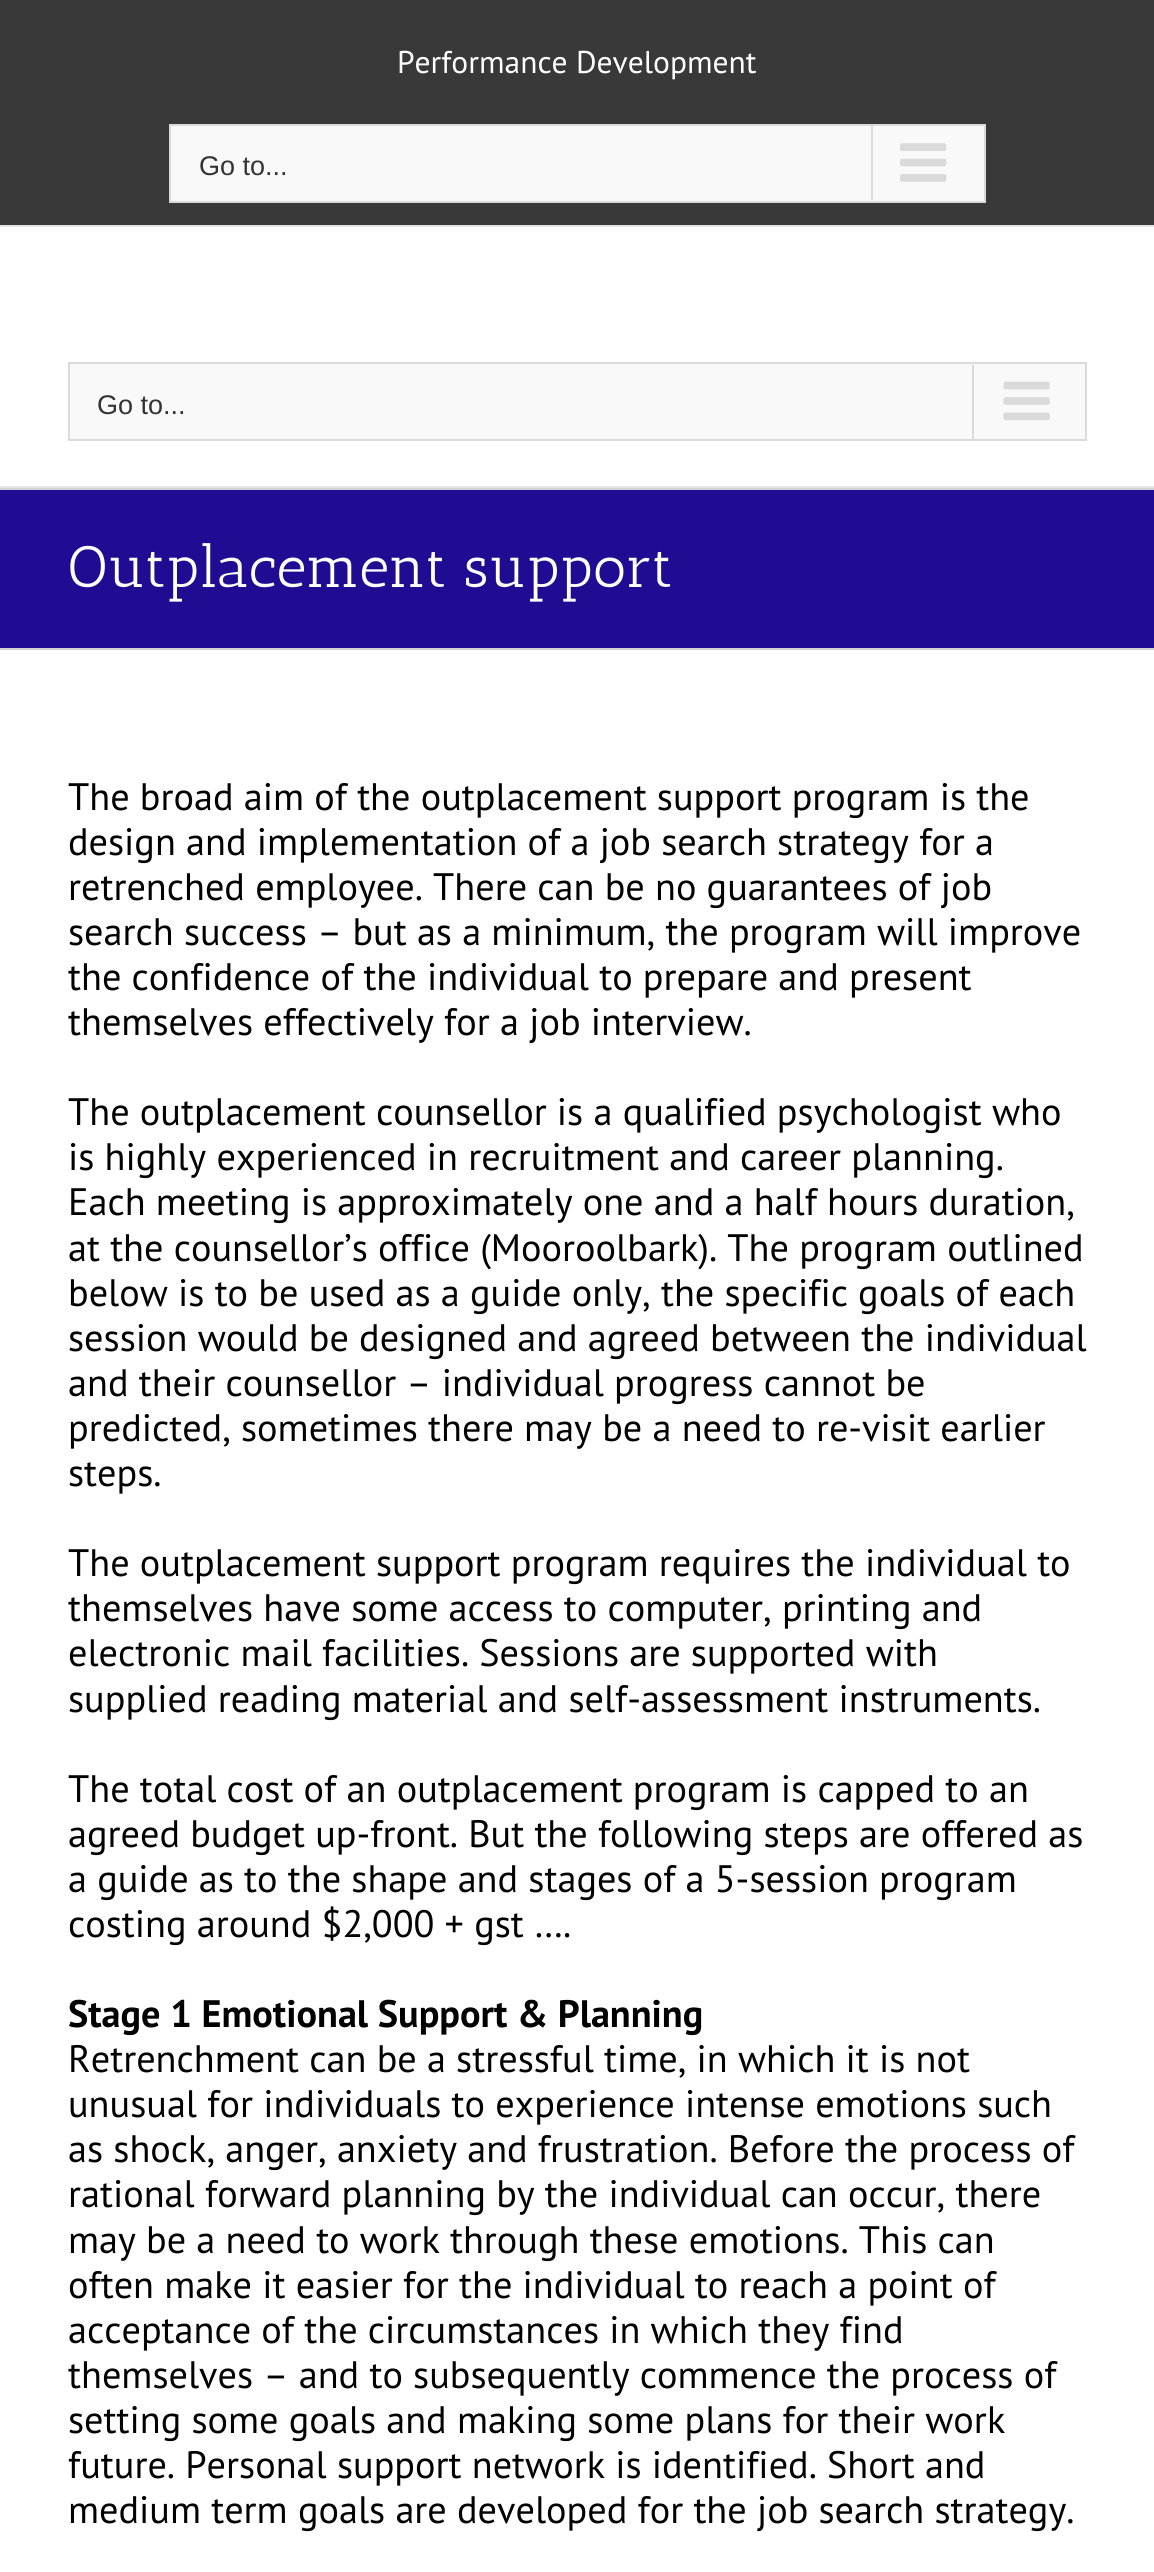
import math
import cairocffi as cairo

surface = cairo.ImageSurface(cairo.FORMAT_RGB24, 1154, 2572)
ctx = cairo.Context(surface)
options = cairo.FontOptions()
options.set_hint_metrics(cairo.HINT_METRICS_OFF)
options.set_hint_style(cairo.HINT_STYLE_NONE)
ctx.set_font_options(options)
ctx.set_miter_limit(4)


def rgb(r, g, b):
    ctx.set_source_rgb(r / 255, g / 255, b / 255)


def face(family, size, italic, bold):
    ctx.select_font_face(family, cairo.FONT_SLANT_ITALIC if italic else cairo.FONT_SLANT_NORMAL, cairo.FONT_WEIGHT_BOLD if bold else cairo.FONT_WEIGHT_NORMAL)
    ctx.set_font_size(size)


def label(x, y, s):
    ctx.move_to(x, y)
    ctx.show_text(s)


def rect(x, y, w, h):
    ctx.rectangle(x, y, w, h)
    ctx.fill()


def image(path, x, y, w, h):
    ctx.save()
    ctx.set_source_surface(cairo.ImageSurface.create_from_png(path), x, y)
    ctx.rectangle(x, y, w, h)
    ctx.fill()
    ctx.restore()


rgb(255, 255, 255)
ctx.paint()
rgb(57, 57, 58)
rect(0, 0, 1154, 225)
rgb(229, 229, 229)
rect(0, 225, 1154, 2)
face('PT Sans', 31.5, 0, 0)
rgb(255, 255, 255)
label(397, 73, 'Performance Development')
rgb(249, 249, 249)
ctx.rectangle(170, 125, 815, 77)
ctx.fill_preserve()
rgb(218, 218, 218)
ctx.stroke()
face('Liberation Sans', 27, 0, 0)
rgb(51, 51, 51)
label(199, 175, 'Go to...')
rgb(218, 218, 218)
rect(871, 126, 2, 74)
image('image0.png', 900, 143, 47, 39)
rgb(229, 229, 229)
rect(0, 486, 1154, 2)
rgb(249, 249, 249)
ctx.rectangle(69, 363, 1017, 77)
ctx.fill_preserve()
rgb(218, 218, 218)
ctx.stroke()
rgb(51, 51, 51)
label(97, 414, 'Go to...')
rgb(218, 218, 218)
rect(972, 365, 2, 74)
image('image1.png', 1003, 381, 47, 40)
rgb(32, 12, 147)
rect(0, 490, 1154, 158)
rgb(210, 211, 212)
rect(0, 488, 1154, 2)
rect(0, 648, 1154, 2)
face('Antic Slab', 58.5, 0, 0)
rgb(255, 255, 255)
label(68, 587, 'Outplacement support')
face('PT Sans', 38.25, 0, 0)
rgb(0, 0, 0)
label(68, 810, 'The broad aim of the outplacement support program is the')
label(68, 855, 'design and implementation of a job search strategy for a')
label(68, 900, 'retrenched employee. There can be no guarantees of job')
label(68, 945, 'search success – but as a minimum, the program will improve')
label(68, 990, 'the confidence of the individual to prepare and present')
label(68, 1035, 'themselves effectively for a job interview.')
label(68, 1125, 'The outplacement counsellor is a qualified psychologist who')
label(68, 1170, 'is highly experienced in recruitment and career planning.')
label(68, 1215, 'Each meeting is approximately one and a half hours duration,')
label(68, 1261, 'at the counsellor’s office (Mooroolbark). The program outlined')
label(68, 1306, 'below is to be used as a guide only, the specific goals of each')
label(68, 1351, 'session would be designed and agreed between the individual')
label(68, 1396, 'and their counsellor – individual progress cannot be')
label(68, 1441, 'predicted, sometimes there may be a need to re-visit earlier')
label(68, 1486, 'steps.')
label(68, 1576, 'The outplacement support program requires the individual to')
label(68, 1621, 'themselves have some access to computer, printing and')
label(68, 1666, 'electronic mail facilities. Sessions are supported with')
label(68, 1712, 'supplied reading material and self-assessment instruments.')
label(68, 1802, 'The total cost of an outplacement program is capped to an')
label(68, 1847, 'agreed budget up-front. But the following steps are offered as')
label(68, 1892, 'a guide as to the shape and stages of a 5-session program')
label(68, 1937, 'costing around $2,000 + gst ….')
face('PT Sans', 38.25, 0, 1)
label(68, 2027, 'Stage 1 Emotional Support & Planning')
face('PT Sans', 38.25, 0, 0)
label(68, 2072, 'Retrenchment can be a stressful time, in which it is not')
label(68, 2117, 'unusual for individuals to experience intense emotions such')
label(68, 2162, 'as shock, anger, anxiety and frustration. Before the process of')
label(68, 2207, 'rational forward planning by the individual can occur, there')
label(68, 2253, 'may be a need to work through these emotions. This can')
label(68, 2298, 'often make it easier for the individual to reach a point of')
label(68, 2343, 'acceptance of the circumstances in which they find')
label(68, 2388, 'themselves – and to subsequently commence the process of')
label(68, 2433, 'setting some goals and making some plans for their work')
label(68, 2478, 'future. Personal support network is identified. Short and')
label(68, 2523, 'medium term goals are developed for the job search strategy.')
surface.write_to_png('render.png')
